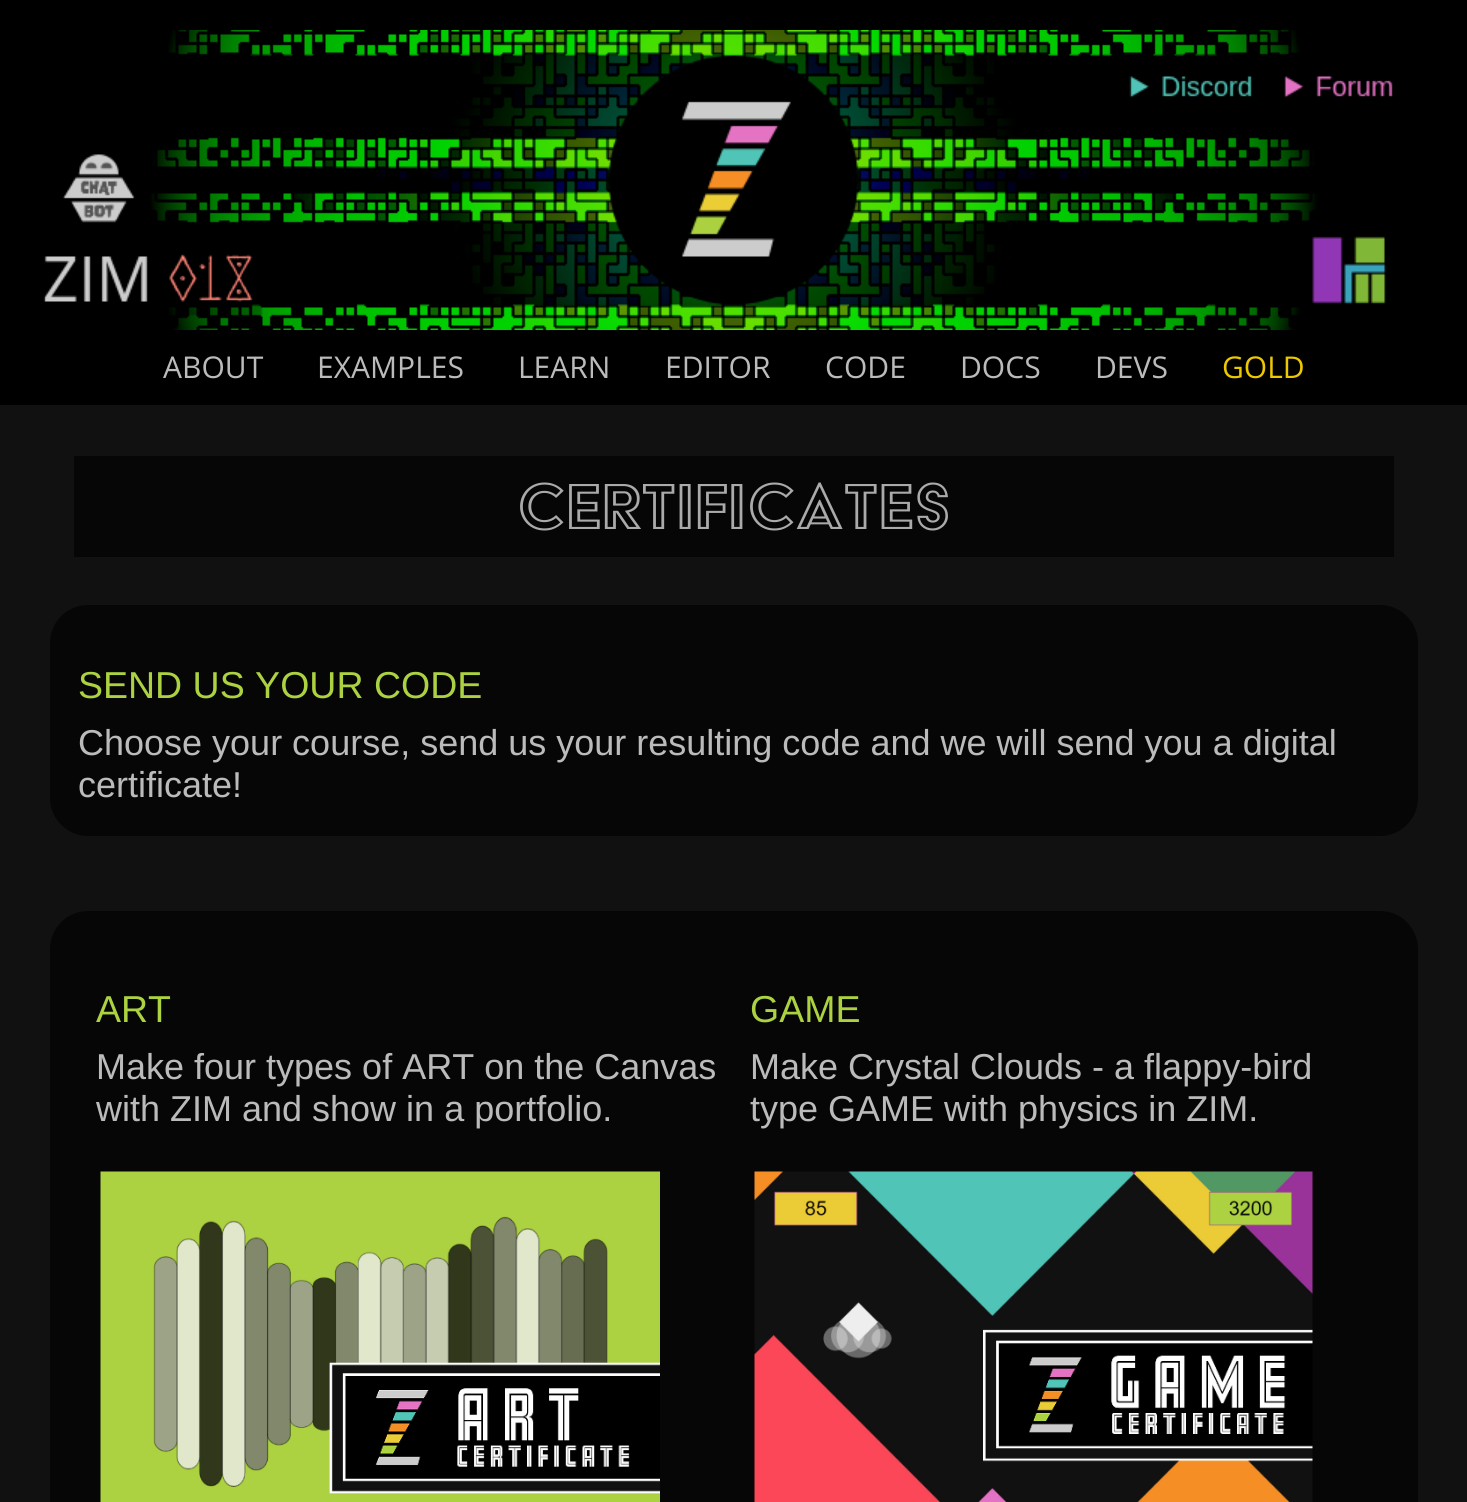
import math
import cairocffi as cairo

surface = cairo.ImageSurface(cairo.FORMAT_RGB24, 1467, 1502)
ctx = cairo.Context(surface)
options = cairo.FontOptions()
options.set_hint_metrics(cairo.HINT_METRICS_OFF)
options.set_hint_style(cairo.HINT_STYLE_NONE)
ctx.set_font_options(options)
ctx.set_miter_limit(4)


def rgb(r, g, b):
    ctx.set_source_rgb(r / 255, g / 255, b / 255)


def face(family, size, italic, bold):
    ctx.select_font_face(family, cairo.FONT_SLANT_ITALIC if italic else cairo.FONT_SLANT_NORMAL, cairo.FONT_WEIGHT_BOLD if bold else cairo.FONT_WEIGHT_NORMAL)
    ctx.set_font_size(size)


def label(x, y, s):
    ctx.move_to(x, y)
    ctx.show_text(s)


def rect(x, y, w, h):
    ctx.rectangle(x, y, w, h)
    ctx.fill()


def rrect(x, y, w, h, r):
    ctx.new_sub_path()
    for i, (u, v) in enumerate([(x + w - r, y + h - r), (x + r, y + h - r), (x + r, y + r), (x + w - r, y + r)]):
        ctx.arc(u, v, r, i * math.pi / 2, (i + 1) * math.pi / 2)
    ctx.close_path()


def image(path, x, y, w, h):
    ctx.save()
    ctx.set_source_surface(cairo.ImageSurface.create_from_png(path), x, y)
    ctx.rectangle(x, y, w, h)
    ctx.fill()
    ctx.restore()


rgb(17, 17, 17)
ctx.paint()
rgb(0, 0, 0)
rect(0, 0, 1467, 405)
image('image0.png', 43, 30, 1350, 300)
face('Open Sans', 30, 0, 0)
rgb(187, 187, 187)
label(163, 378, 'ABOUT')
label(317, 378, 'EXAMPLES')
label(518, 378, 'LEARN')
label(665, 378, 'EDITOR')
label(825, 378, 'CODE')
label(960, 378, 'DOCS')
label(1095, 378, 'DEVS')
rgb(235, 200, 0)
label(1222, 378, 'GOLD')
rgb(6, 6, 6)
rect(74, 456, 1320, 101)
face('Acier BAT', 75, 0, 0)
rgb(170, 170, 170)
label(516, 529, 'CERTIFICATES')
rgb(6, 6, 6)
rrect(50, 605, 1368, 231, 38)
ctx.fill()
face('Liberation Sans', 37.5, 0, 0)
rgb(172, 210, 65)
label(78, 698, 'SEND US YOUR CODE')
face('Liberation Sans', 36, 0, 0)
rgb(187, 187, 187)
label(78, 755, 'Choose your course, send us your resulting code and we will send you a digital')
label(78, 797, 'certificate!')
rgb(6, 6, 6)
rrect(50, 911, 1368, 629, 38)
ctx.fill()
face('Liberation Sans', 37.5, 0, 0)
rgb(172, 210, 65)
label(96, 1022, 'ART')
face('Liberation Sans', 36, 0, 0)
rgb(187, 187, 187)
label(96, 1079, 'Make four types of ART on the Canvas')
label(96, 1121, 'with ZIM and show in a portfolio.')
image('image1.png', 100, 1171, 560, 331)
face('Liberation Sans', 37.5, 0, 0)
rgb(172, 210, 65)
label(750, 1022, 'GAME')
face('Liberation Sans', 36, 0, 0)
rgb(187, 187, 187)
label(750, 1079, 'Make Crystal Clouds - a flappy-bird')
label(750, 1121, 'type GAME with physics in ZIM.')
image('image2.png', 754, 1171, 559, 331)
surface.write_to_png('render.png')
